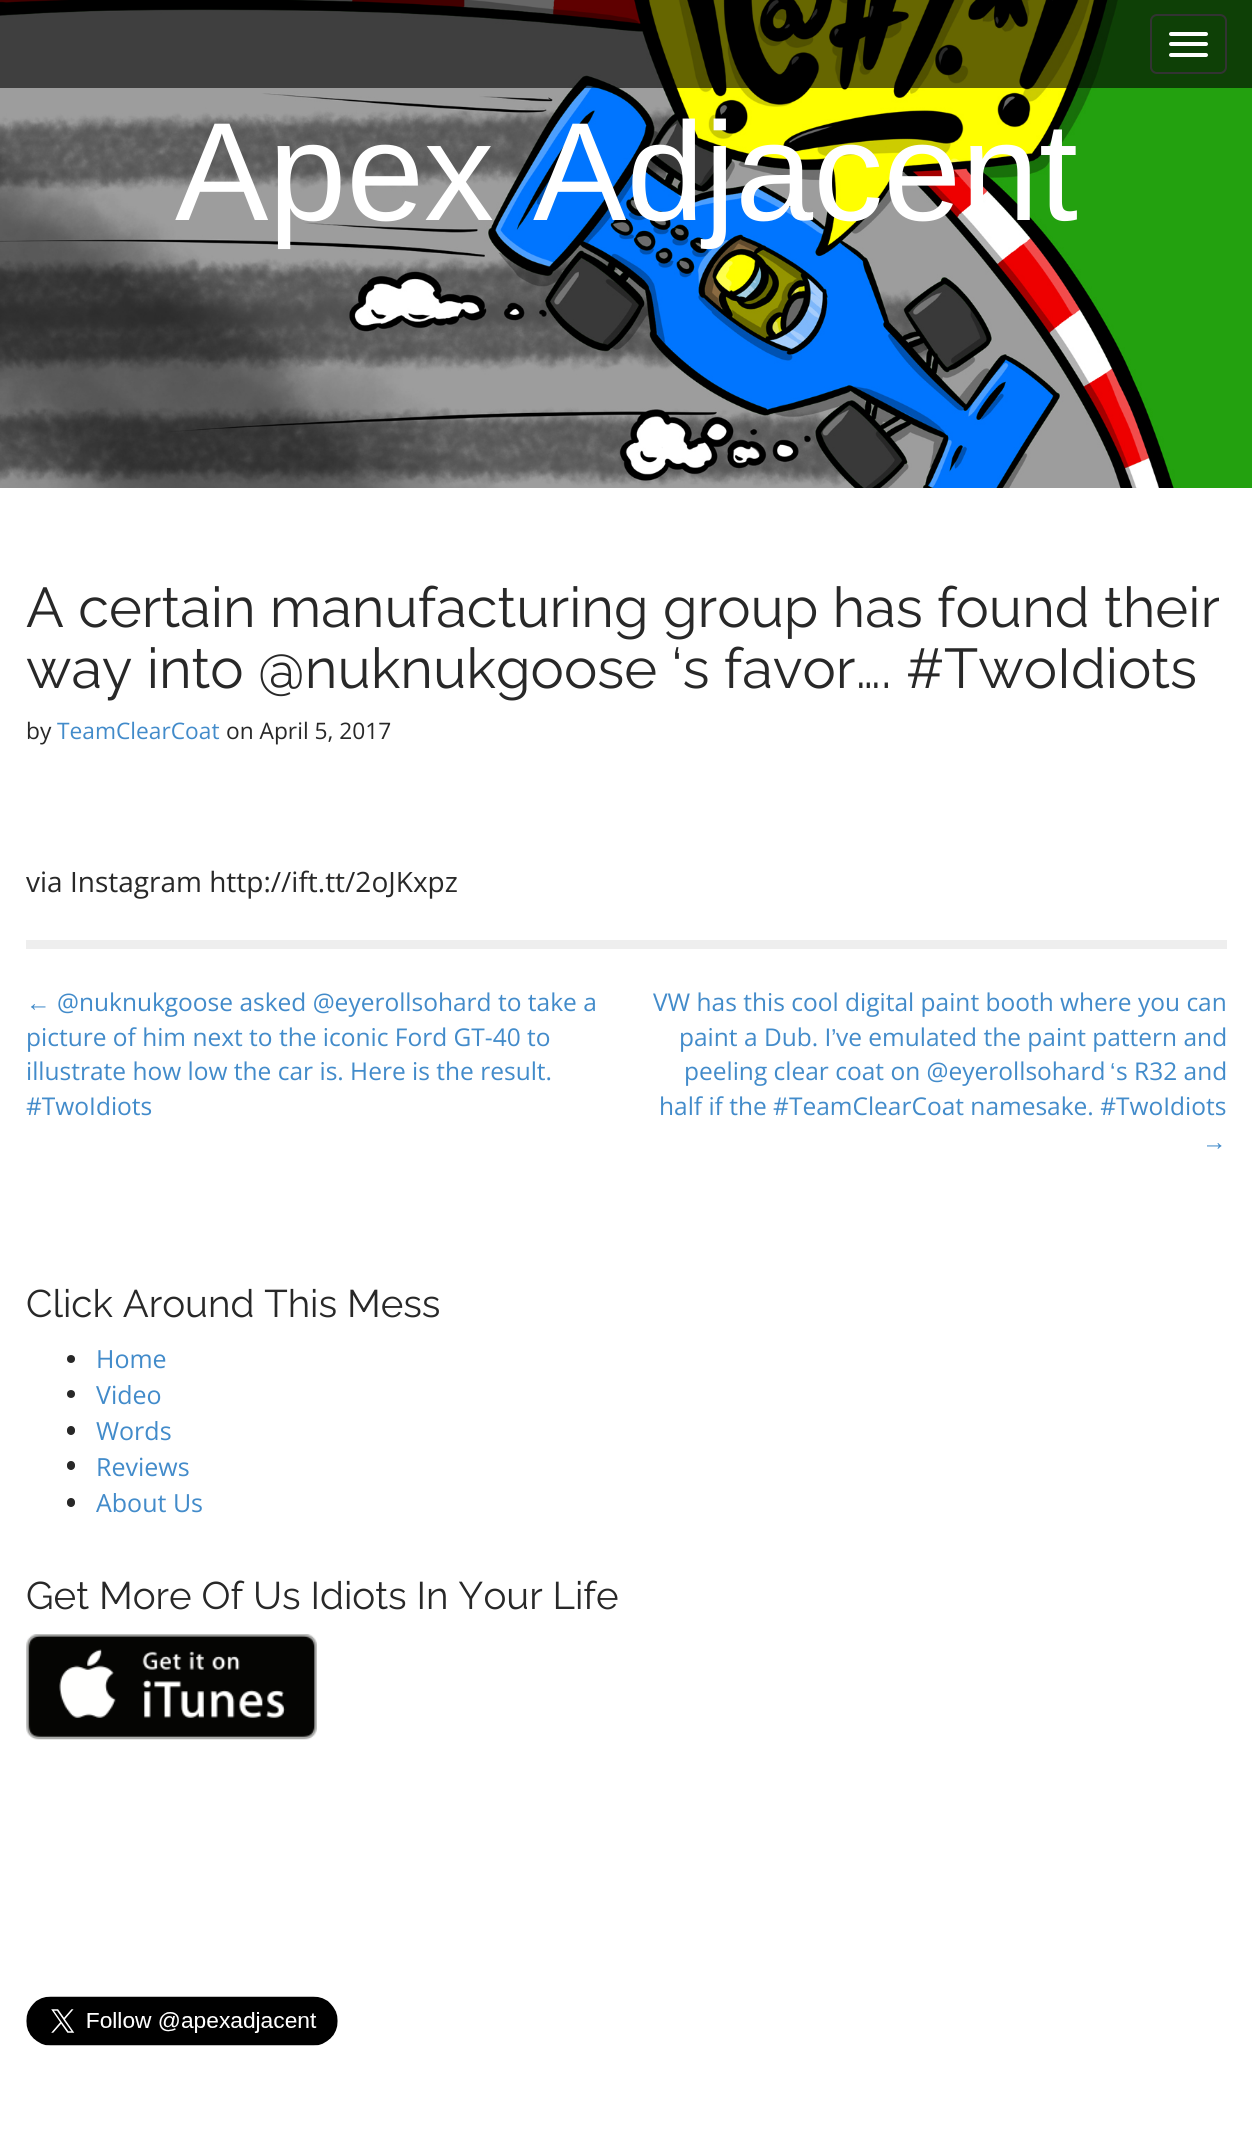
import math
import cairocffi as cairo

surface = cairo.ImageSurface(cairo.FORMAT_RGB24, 1252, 2134)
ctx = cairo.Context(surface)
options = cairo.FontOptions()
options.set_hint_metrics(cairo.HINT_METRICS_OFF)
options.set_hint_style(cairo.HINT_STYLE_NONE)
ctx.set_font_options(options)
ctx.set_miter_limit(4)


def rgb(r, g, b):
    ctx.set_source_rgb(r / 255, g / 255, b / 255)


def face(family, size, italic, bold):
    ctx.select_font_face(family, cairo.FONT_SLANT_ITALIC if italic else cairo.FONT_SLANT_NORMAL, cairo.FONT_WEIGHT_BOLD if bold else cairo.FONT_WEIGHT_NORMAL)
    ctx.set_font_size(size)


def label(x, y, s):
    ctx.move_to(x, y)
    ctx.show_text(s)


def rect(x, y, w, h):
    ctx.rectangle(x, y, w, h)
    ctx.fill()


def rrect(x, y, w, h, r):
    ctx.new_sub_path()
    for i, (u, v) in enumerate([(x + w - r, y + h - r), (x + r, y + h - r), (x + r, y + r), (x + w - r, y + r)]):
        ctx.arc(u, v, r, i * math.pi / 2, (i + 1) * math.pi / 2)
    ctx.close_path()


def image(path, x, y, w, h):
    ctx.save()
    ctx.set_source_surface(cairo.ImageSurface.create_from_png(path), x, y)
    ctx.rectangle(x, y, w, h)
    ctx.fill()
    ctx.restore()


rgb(255, 255, 255)
ctx.paint()
image('image0.png', 0, 0, 1252, 488)
ctx.set_source_rgba(0, 0, 0, 0.6)
rect(0, 0, 1252, 88)
rrect(1151, 15, 75, 58, 6)
rgb(51, 51, 51)
ctx.stroke()
rgb(255, 255, 255)
rrect(1169, 32, 39, 4, 2)
ctx.fill()
rrect(1169, 42, 39, 4, 2)
ctx.fill()
rrect(1169, 53, 39, 4, 2)
ctx.fill()
face('Liberation Sans', 140, 0, 0)
label(175, 220, 'Apex Adjacent')
rgb(238, 238, 238)
rect(26, 940, 1201, 9)
face('Raleway Thin', 56, 0, 0)
rgb(40, 40, 40)
label(26, 627, 'A certain manufacturing group has found their')
label(26, 688, 'way into @nuknukgoose ‘s favor…. #TwoIdiots')
face('Open Sans', 22.75, 0, 0)
label(26, 739, 'by')
rgb(66, 139, 202)
label(57, 739, 'TeamClearCoat')
rgb(40, 40, 40)
label(226, 739, 'on April 5, 2017')
face('Open Sans', 28, 0, 0)
label(26, 892, 'via Instagram http://ift.tt/2oJKxpz')
face('Liberation Sans', 24.5, 0, 0)
rgb(66, 139, 202)
label(26, 1011, '←')
face('Open Sans', 24.5, 0, 0)
label(57, 1011, '@nuknukgoose asked @eyerollsohard to take a')
label(26, 1046, 'picture of him next to the iconic Ford GT-40 to')
label(26, 1080, 'illustrate how low the car is. Here is the result.')
label(26, 1115, '#TwoIdiots')
label(653, 1011, 'VW has this cool digital paint booth where you can')
label(679, 1046, 'paint a Dub. I')
face('Liberation Sans', 24.5, 0, 0)
label(831, 1046, '’')
face('Open Sans', 24.5, 0, 0)
label(836, 1046, 've emulated the paint pattern and')
label(684, 1080, 'peeling clear coat on @eyerollsohard')
face('Liberation Sans', 24.5, 0, 0)
label(1110, 1080, '‘')
face('Open Sans', 24.5, 0, 0)
label(1116, 1080, 's R32 and')
label(659, 1115, 'half if the #TeamClearCoat namesake. #TwoIdiots')
face('Liberation Sans', 24.5, 0, 0)
label(1202, 1150, '→')
face('Raleway Thin', 38.5, 0, 0)
rgb(40, 40, 40)
label(26, 1317, 'Click Around This Mess')
ctx.new_path()
ctx.arc(71, 1359, 4, 0, 2 * math.pi)
ctx.fill()
face('Open Sans', 25, 0, 0)
rgb(66, 139, 202)
label(96, 1368, 'Home')
rgb(40, 40, 40)
ctx.new_path()
ctx.arc(71, 1394, 4, 0, 2 * math.pi)
ctx.fill()
rgb(66, 139, 202)
label(96, 1404, 'Video')
rgb(40, 40, 40)
rrect(67, 1426, 8, 9, 4)
ctx.fill()
rgb(66, 139, 202)
label(96, 1440, 'Words')
rgb(40, 40, 40)
rrect(67, 1461, 8, 9, 4)
ctx.fill()
rgb(66, 139, 202)
label(96, 1476, 'Reviews')
rgb(40, 40, 40)
rrect(67, 1498, 8, 9, 4)
ctx.fill()
rgb(66, 139, 202)
label(96, 1512, 'About Us')
face('Raleway Thin', 38.5, 0, 0)
rgb(40, 40, 40)
label(26, 1609, 'Get More Of Us Idiots In Your Life')
image('image1.png', 26, 1634, 291, 106)
image('image2.png', 26, 1996, 312, 50)
surface.write_to_png('render.png')
